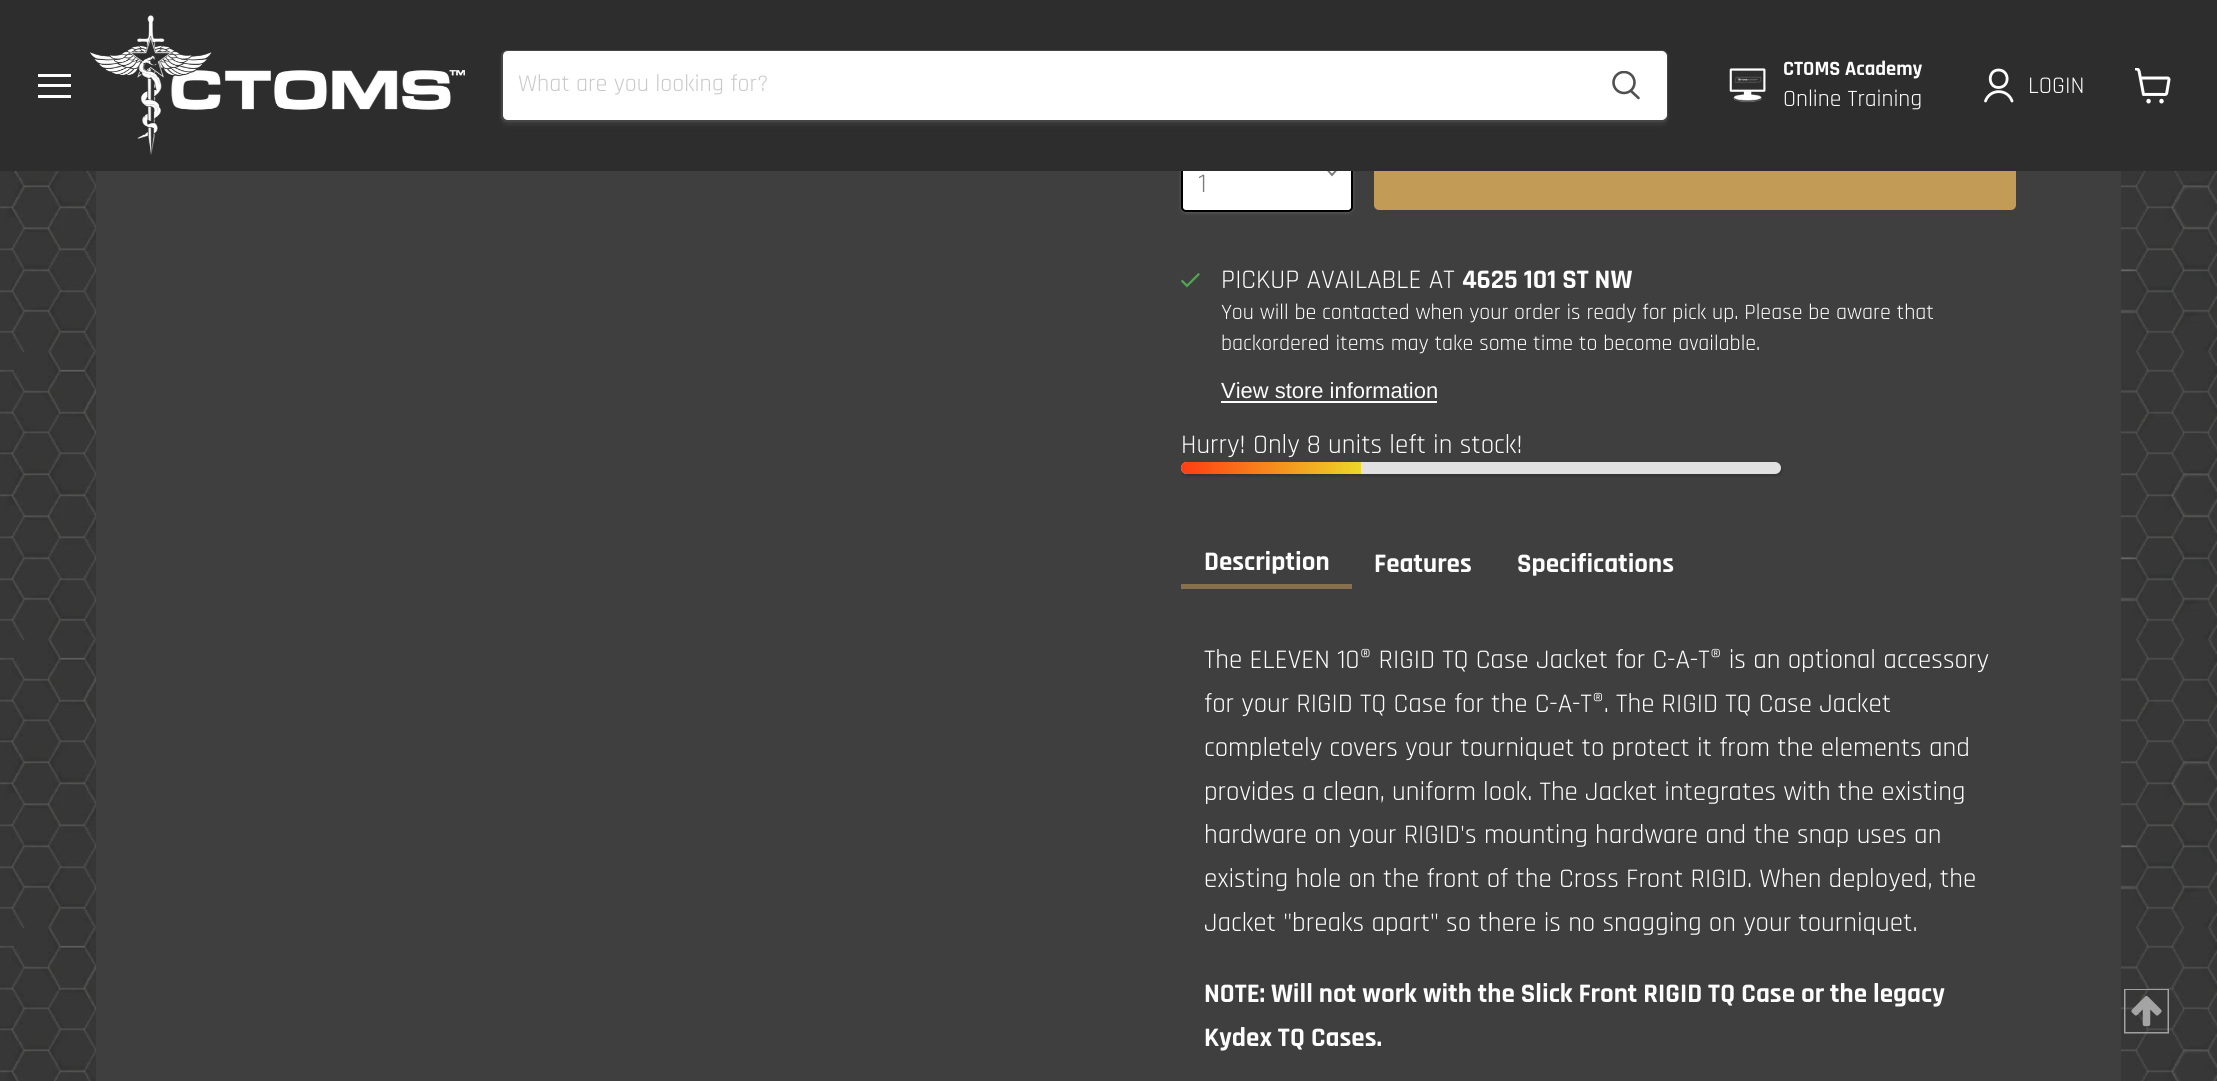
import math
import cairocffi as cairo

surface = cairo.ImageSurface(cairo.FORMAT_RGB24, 2217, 1081)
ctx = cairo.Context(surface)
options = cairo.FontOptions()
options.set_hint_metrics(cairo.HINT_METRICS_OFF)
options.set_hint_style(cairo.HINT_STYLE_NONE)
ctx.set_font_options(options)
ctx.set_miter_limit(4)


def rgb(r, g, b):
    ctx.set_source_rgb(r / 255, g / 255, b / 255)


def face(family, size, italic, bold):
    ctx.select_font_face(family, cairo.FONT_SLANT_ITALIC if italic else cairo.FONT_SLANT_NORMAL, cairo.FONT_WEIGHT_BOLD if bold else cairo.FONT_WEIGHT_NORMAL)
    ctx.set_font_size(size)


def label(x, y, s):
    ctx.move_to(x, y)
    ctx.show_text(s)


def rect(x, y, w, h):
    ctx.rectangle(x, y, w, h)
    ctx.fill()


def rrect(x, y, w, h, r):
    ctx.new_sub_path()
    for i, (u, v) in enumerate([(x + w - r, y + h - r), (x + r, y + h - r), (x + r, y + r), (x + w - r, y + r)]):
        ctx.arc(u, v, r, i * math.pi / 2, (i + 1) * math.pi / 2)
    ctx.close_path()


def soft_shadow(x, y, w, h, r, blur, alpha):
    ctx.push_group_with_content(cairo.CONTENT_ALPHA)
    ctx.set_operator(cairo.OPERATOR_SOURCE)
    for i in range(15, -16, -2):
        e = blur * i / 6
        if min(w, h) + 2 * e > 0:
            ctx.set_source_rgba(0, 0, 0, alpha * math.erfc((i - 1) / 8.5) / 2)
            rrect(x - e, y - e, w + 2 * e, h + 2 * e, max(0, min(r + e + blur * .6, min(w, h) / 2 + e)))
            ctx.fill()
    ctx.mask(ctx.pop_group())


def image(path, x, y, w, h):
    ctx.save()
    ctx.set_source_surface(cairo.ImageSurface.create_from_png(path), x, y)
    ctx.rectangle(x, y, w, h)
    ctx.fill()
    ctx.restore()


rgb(255, 255, 255)
ctx.paint()
image('image0.png', 0, 171, 2217, 910)
rgb(63, 63, 63)
rect(96, 171, 2025, 910)
rgb(255, 255, 255)
soft_shadow(1181, 134, 172, 79, 5, 1.5, 0.15)
rgb(255, 255, 255)
rrect(1182, 133, 170, 78, 4)
ctx.fill_preserve()
rgb(0, 0, 0)
ctx.stroke()
ctx.new_path()
ctx.move_to(1332, 175)
ctx.line_to(1336.5, 170)
ctx.move_to(1332, 175)
ctx.line_to(1327.5, 170)
rgb(123, 122, 122)
ctx.set_line_width(1.9)
ctx.set_line_cap(cairo.LINE_CAP_SQUARE)
ctx.stroke()
rgb(194, 155, 87)
rrect(1374, 135, 642, 75, 5)
ctx.fill()
rgb(45, 45, 45)
rect(0, 0, 2217, 171)
rgb(255, 255, 255)
rect(38, 74, 33, 3)
rect(38, 84, 33, 3)
rect(38, 95, 33, 3)
image('image1.png', 90, 15, 375, 140)
ctx.save()
ctx.set_fill_rule(cairo.FILL_RULE_EVEN_ODD)
ctx.new_path()
ctx.move_to(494, 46)
ctx.line_to(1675, 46)
ctx.line_to(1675, 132)
ctx.line_to(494, 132)
ctx.close_path()
ctx.move_to(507, 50)
ctx.line_to(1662, 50)
ctx.curve_to(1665.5, 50, 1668, 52.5, 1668, 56)
ctx.line_to(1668, 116)
ctx.curve_to(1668, 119.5, 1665.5, 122, 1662, 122)
ctx.line_to(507, 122)
ctx.curve_to(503.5, 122, 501, 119.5, 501, 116)
ctx.line_to(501, 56)
ctx.curve_to(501, 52.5, 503.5, 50, 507, 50)
ctx.close_path()
ctx.clip()
rgb(172, 171, 171)
soft_shadow(501, 53, 1167, 72, 6, 2, 0.11)
ctx.restore()
rrect(502, 51, 1165, 70, 5)
ctx.set_source_rgba(0.675, 0.671, 0.671, 0.2)
ctx.set_line_width(2)
ctx.set_line_cap(cairo.LINE_CAP_BUTT)
ctx.stroke()
rgb(255, 255, 255)
ctx.new_path()
ctx.move_to(508, 51)
ctx.line_to(1586, 51)
ctx.line_to(1586, 120)
ctx.line_to(508, 120)
ctx.curve_to(505, 120, 503, 118, 503, 115)
ctx.line_to(503, 56)
ctx.curve_to(503, 53, 505, 51, 508, 51)
ctx.close_path()
ctx.fill()
face('Rajdhani', 24, 0, 0)
rgb(202, 202, 202)
label(518, 91, 'What are you looking for?')
rgb(255, 255, 255)
ctx.new_path()
ctx.move_to(1587, 52)
ctx.line_to(1662, 52)
ctx.curve_to(1664, 52, 1666, 54, 1666, 56)
ctx.line_to(1666, 115)
ctx.curve_to(1666, 117, 1664, 119, 1662, 119)
ctx.line_to(1587, 119)
ctx.close_path()
ctx.fill_preserve()
ctx.stroke()
ctx.new_path()
ctx.move_to(1638.5, 98)
ctx.line_to(1631, 91)
rgb(80, 80, 80)
ctx.set_line_width(2.6)
ctx.set_line_cap(cairo.LINE_CAP_ROUND)
ctx.stroke()
ctx.save()
ctx.rectangle(1611, 71, 30, 31)
ctx.clip()
ctx.arc(1624, 82.5, 10.5, 0, 2 * math.pi)
ctx.set_line_cap(cairo.LINE_CAP_BUTT)
ctx.stroke()
ctx.restore()
image('image2.png', 1729, 68, 37, 35)
face('Rajdhani', 20.5, 0, 1)
rgb(253, 253, 253)
label(1783, 75, 'CTOMS Academy')
face('Rajdhani', 23.5, 0, 0)
label(1783, 106, 'Online Training')
ctx.new_path()
ctx.move_to(1998.5, 87.5)
ctx.curve_to(2010, 87.5, 2010, 70, 1998.5, 70)
ctx.curve_to(1987.5, 70, 1987.5, 87.5, 1998.5, 87.5)
ctx.close_path()
ctx.move_to(2012, 101)
ctx.curve_to(2007.5, 88.5, 1990, 88.5, 1985.5, 101)
rgb(255, 255, 255)
ctx.set_line_width(2.8)
ctx.set_line_join(cairo.LINE_JOIN_ROUND)
ctx.stroke()
face('Rajdhani', 24, 0, 0)
rgb(253, 253, 253)
label(2028, 93, 'LOGIN')
image('image3.png', 2135, 68, 36, 36)
face('Rajdhani', 27, 0, 0)
rgb(123, 122, 122)
label(1198, 192, '1')
image('image4.png', 1181, 273, 19, 15)
rgb(253, 253, 253)
label(1221, 288, 'PICKUP AVAILABLE AT')
face('Rajdhani', 27, 0, 1)
label(1462, 288, '4625 101 ST NW')
face('Rajdhani', 21.95, 0, 0)
label(1221, 319, 'You will be contacted when your order is ready for pick up. Please be aware that')
label(1221, 350, 'backordered items may take some time to become available.')
face('Liberation Sans', 21.95, 0, 0)
label(1221, 398, 'View store information')
rect(1221, 401, 216, 2)
face('Rajdhani', 27, 0, 0)
label(1181, 453, 'Hurry! Only 8 units left in stock!')
rgb(0, 0, 0)
soft_shadow(1182, 464, 600, 12, 6, 1.5, 0.2)
rgb(225, 225, 225)
rrect(1181, 462, 600, 12, 6)
ctx.fill()
gradient = cairo.LinearGradient(1181, 468, 1361, 468)
gradient.add_color_stop_rgba(0, 1, 0.239, 0.071, 1)
gradient.add_color_stop_rgba(1, 0.929, 0.843, 0.157, 1)
ctx.set_source(gradient)
ctx.new_path()
ctx.move_to(1187, 462)
ctx.line_to(1361, 462)
ctx.line_to(1361, 474)
ctx.line_to(1187, 474)
ctx.curve_to(1183.5, 474, 1181, 471.5, 1181, 468)
ctx.curve_to(1181, 464.5, 1183.5, 462, 1187, 462)
ctx.close_path()
ctx.fill()
rgb(134, 112, 77)
rect(1181, 584, 171, 5)
face('Rajdhani', 27, 0, 1)
rgb(253, 253, 253)
label(1204, 570, 'Description')
label(1374, 572, 'Features')
label(1517, 572, 'Specifications')
face('Rajdhani', 27, 0, 0)
label(1204, 668, 'The ELEVEN 10® RIGID TQ Case Jacket for C-A-T® is an optional accessory')
label(1204, 712, 'for your RIGID TQ Case for the C-A-T®. The RIGID TQ Case Jacket')
label(1204, 756, 'completely covers your tourniquet to protect it from the elements and')
label(1204, 800, 'provides a clean, uniform look. The Jacket integrates with the existing')
label(1204, 843, 'hardware on your RIGID\'s mounting hardware and the snap uses an')
label(1204, 887, 'existing hole on the front of the Cross Front RIGID. When deployed, the')
label(1204, 931, 'Jacket "breaks apart" so there is no snagging on your tourniquet.')
face('Rajdhani', 27, 0, 1)
label(1204, 1002, 'NOTE: Will not work with the Slick Front RIGID TQ Case or the legacy')
label(1204, 1046, 'Kydex TQ Cases.')
image('image5.png', 2124, 989, 45, 45)
surface.write_to_png('render.png')
